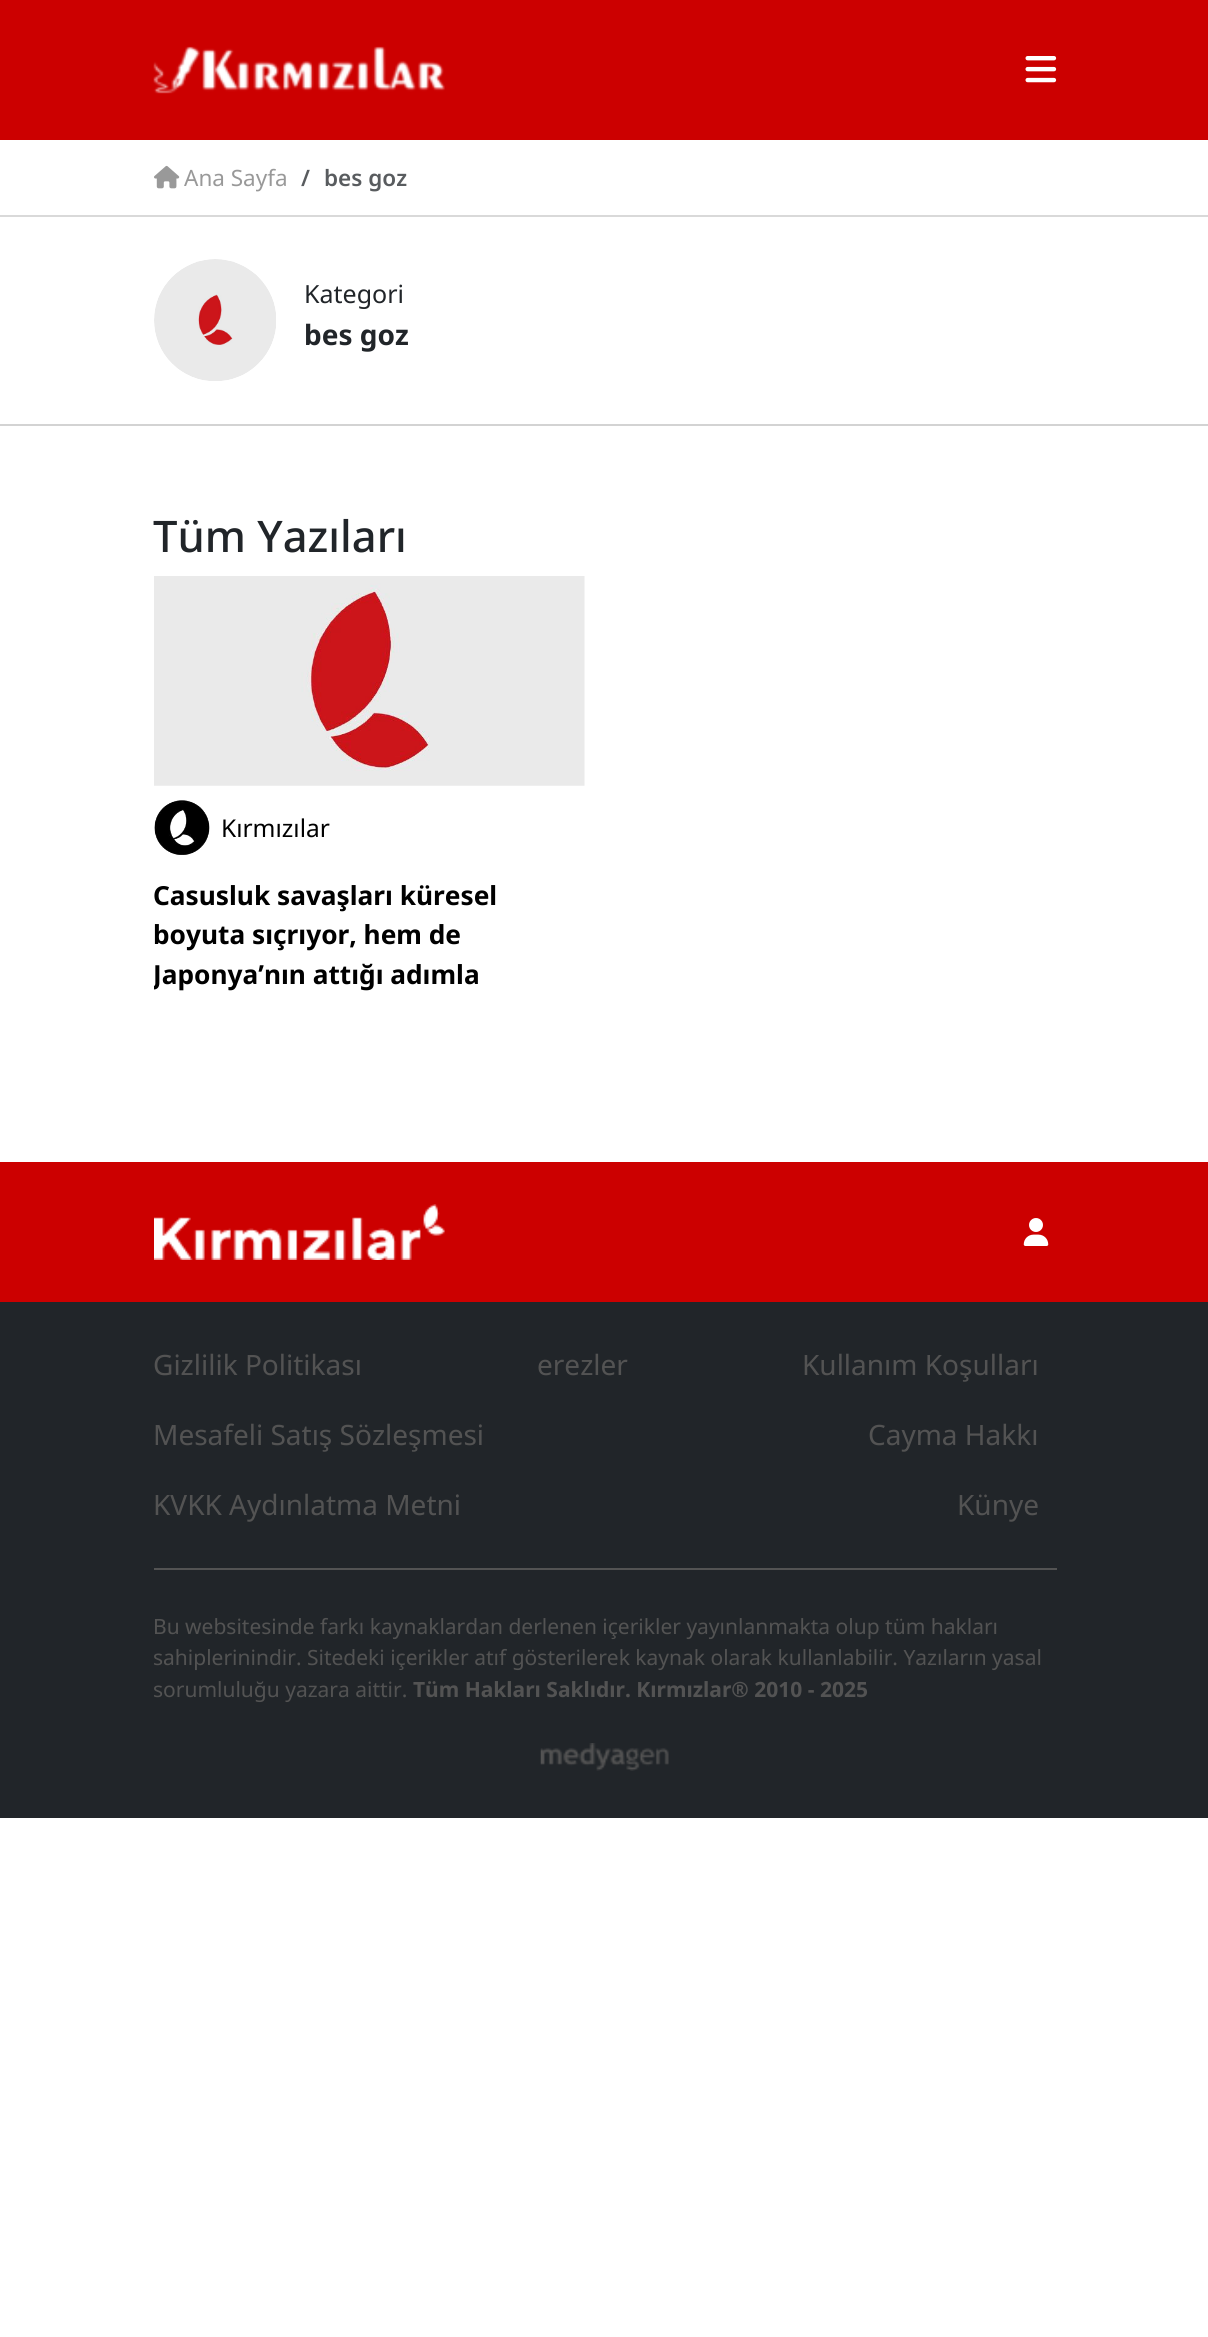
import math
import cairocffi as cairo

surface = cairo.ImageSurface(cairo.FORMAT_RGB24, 1208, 2337)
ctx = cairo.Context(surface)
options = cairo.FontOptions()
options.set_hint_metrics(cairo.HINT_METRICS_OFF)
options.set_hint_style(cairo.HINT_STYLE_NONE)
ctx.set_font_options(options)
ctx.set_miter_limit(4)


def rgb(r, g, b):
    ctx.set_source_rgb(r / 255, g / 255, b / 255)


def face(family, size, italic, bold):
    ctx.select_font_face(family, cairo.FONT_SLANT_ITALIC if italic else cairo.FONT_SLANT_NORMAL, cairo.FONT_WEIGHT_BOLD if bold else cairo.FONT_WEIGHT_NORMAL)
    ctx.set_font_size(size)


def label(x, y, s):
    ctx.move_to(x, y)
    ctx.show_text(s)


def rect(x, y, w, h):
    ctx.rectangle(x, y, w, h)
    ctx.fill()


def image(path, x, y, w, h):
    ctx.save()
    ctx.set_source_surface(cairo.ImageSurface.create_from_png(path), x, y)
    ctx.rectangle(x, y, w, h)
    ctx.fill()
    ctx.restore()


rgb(255, 255, 255)
ctx.paint()
rgb(204, 0, 0)
rect(0, 0, 1208, 140)
image('image0.png', 153, 46, 292, 48)
image('image1.png', 1025, 56, 32, 27)
rgb(217, 217, 217)
rect(0, 215, 1208, 2)
image('image2.png', 154, 165, 26, 24)
face('Noto Sans', 22.5, 0, 0)
rgb(153, 153, 153)
label(184, 186, 'Ana Sayfa')
face('Noto Sans SemiBold', 22.5, 0, 0)
rgb(89, 92, 95)
label(301, 186, '/')
label(324, 186, 'bes goz')
rgb(211, 211, 211)
rect(0, 424, 1208, 2)
image('image3.png', 154, 259, 122, 122)
face('Noto Sans', 25, 0, 0)
rgb(33, 37, 41)
label(304, 303, 'Kategori')
face('Noto Sans', 28, 0, 1)
label(304, 345, 'bes goz')
face('Noto Sans Medium', 43.5, 0, 0)
label(153, 552, 'Tüm Yazıları')
image('image4.png', 154, 576, 431, 210)
image('image5.png', 154, 800, 56, 55)
face('Noto Sans', 24.5, 0, 0)
rgb(0, 0, 0)
label(221, 837, 'Kırmızılar')
face('Noto Sans', 26.25, 0, 1)
label(153, 905, 'Casusluk savaşları küresel')
label(153, 944, 'boyuta sıçrıyor, hem de')
ctx.save()
ctx.rectangle(154, 800, 431, 194)
ctx.clip()
label(153, 984, 'Japonya’nın attığı adımla')
ctx.restore()
rgb(204, 0, 0)
rect(0, 1162, 1208, 140)
image('image6.png', 154, 1204, 291, 56)
image('image7.png', 1023, 1218, 26, 28)
rgb(33, 37, 41)
rect(0, 1302, 1208, 516)
face('Noto Sans', 28, 0, 0)
rgb(83, 83, 83)
label(153, 1375, 'Gizlilik Politikası')
label(537, 1375, 'erezler')
label(802, 1375, 'Kullanım Koşulları')
label(153, 1445, 'Mesafeli Satış Sözleşmesi')
label(868, 1445, 'Cayma Hakkı')
label(153, 1515, 'KVKK Aydınlatma Metni')
label(957, 1515, 'Künye')
rect(154, 1568, 903, 2)
face('Noto Sans', 21, 0, 0)
label(153, 1634, 'Bu websitesinde farkı kaynaklardan derlenen içerikler yayınlanmakta olup tüm hakları')
label(153, 1665, 'sahiplerinindir. Sitedeki içerikler atıf gösterilerek kaynak olarak kullanlabilir. Yazıların yasal')
label(153, 1697, 'sorumluluğu yazara aittir.')
face('Noto Sans', 21, 0, 1)
label(413, 1697, 'Tüm Hakları Saklıdır. Kırmızlar® 2010 - 2025')
image('image8.png', 540, 1743, 129, 28)
surface.write_to_png('render.png')
